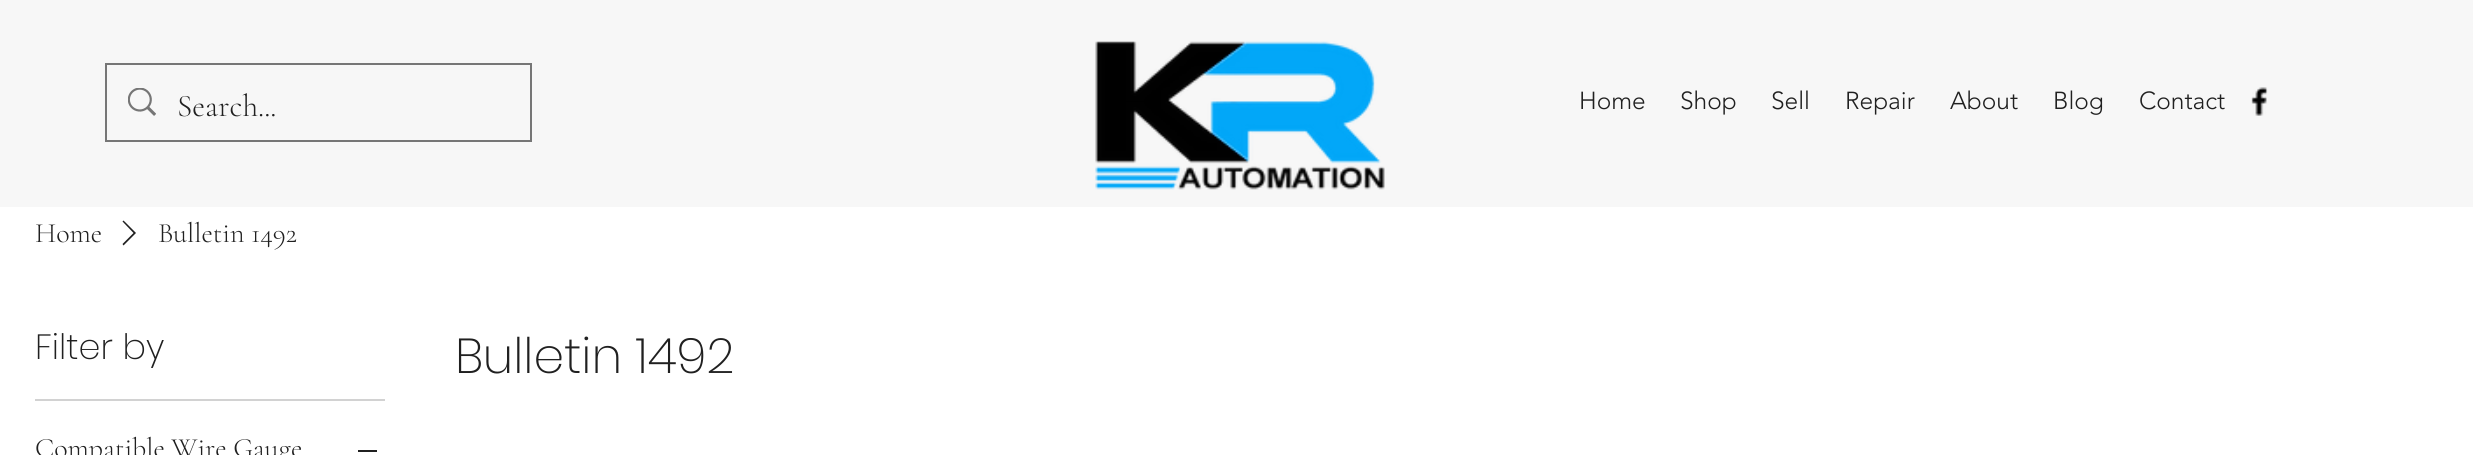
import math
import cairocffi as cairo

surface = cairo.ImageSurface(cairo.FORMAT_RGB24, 2473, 455)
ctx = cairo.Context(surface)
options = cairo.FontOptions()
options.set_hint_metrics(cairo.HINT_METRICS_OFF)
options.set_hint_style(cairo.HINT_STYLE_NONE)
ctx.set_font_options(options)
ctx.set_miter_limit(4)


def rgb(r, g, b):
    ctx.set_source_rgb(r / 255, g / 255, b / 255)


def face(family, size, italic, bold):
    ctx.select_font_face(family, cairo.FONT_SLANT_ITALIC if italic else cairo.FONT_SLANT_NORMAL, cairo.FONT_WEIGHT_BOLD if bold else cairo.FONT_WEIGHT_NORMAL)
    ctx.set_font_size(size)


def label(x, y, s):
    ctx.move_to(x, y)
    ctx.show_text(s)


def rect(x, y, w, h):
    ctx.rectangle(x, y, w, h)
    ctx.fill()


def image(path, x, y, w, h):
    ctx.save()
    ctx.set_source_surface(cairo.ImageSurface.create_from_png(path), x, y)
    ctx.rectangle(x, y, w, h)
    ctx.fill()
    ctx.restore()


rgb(255, 255, 255)
ctx.paint()
rgb(247, 247, 247)
rect(0, 0, 2473, 207)
image('image0.png', 1095, 41, 290, 149)
ctx.rectangle(106, 64, 425, 77)
rgb(118, 118, 118)
ctx.stroke()
image('image1.png', 128, 88, 28, 28)
face('Cormorant Garamond Light', 31.5, 0, 0)
rgb(32, 32, 32)
label(177, 116, 'Search...')
face('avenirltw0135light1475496 Light', 24.5, 0, 0)
label(1579, 109, 'Home')
label(1680, 109, 'Shop')
label(1771, 109, 'Sell')
label(1845, 109, 'Repair')
label(1950, 109, 'About')
label(2053, 109, 'Blog')
label(2139, 109, 'Contact')
image('image2.png', 2251, 87, 17, 29)
face('Cormorant Garamond Light', 28, 0, 0)
label(35, 242, 'Home')
ctx.set_fill_rule(cairo.FILL_RULE_EVEN_ODD)
ctx.new_path()
ctx.move_to(123.5, 220.5)
ctx.line_to(136, 233)
ctx.line_to(123.5, 245.5)
ctx.line_to(122.5, 244)
ctx.line_to(133.5, 233)
ctx.line_to(122.5, 221.5)
ctx.close_path()
ctx.fill()
label(158, 242, 'Bulletin 1492')
rgb(210, 210, 210)
rect(35, 399, 350, 2)
face('Poppins ExtraLight', 35, 0, 0)
rgb(32, 32, 32)
label(35, 359, 'Filter by')
face('Cormorant Garamond Light', 28, 0, 0)
label(35, 457, 'Compatible Wire Gauge')
rect(358, 450, 19, 2)
face('Poppins ExtraLight', 49, 0, 0)
label(455, 373, 'Bulletin 1492')
surface.write_to_png('render.png')
